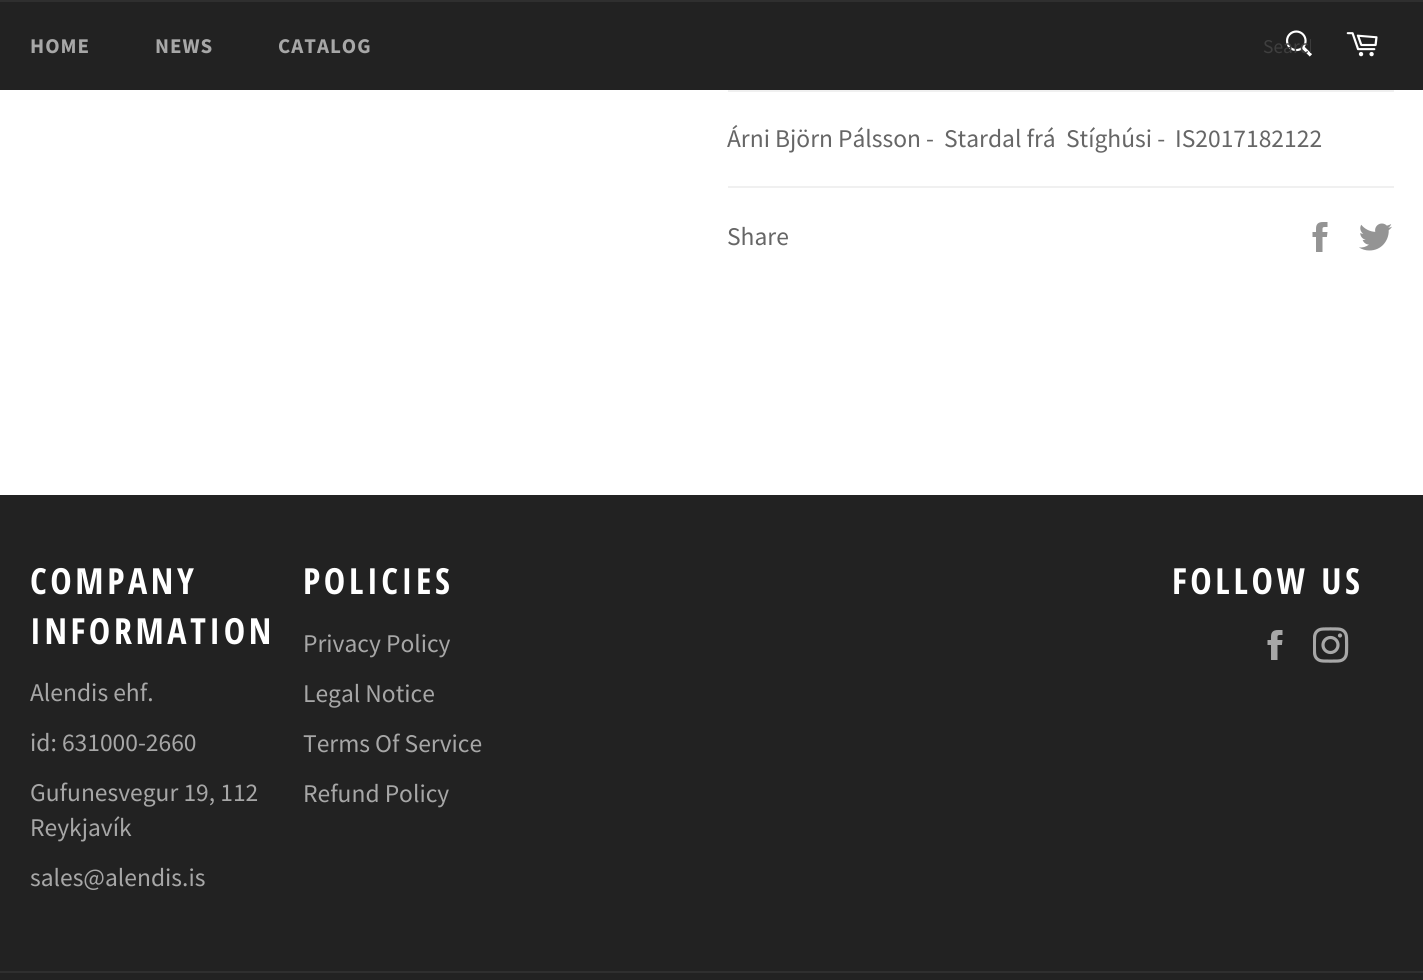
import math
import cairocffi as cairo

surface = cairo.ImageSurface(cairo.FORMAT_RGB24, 1423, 980)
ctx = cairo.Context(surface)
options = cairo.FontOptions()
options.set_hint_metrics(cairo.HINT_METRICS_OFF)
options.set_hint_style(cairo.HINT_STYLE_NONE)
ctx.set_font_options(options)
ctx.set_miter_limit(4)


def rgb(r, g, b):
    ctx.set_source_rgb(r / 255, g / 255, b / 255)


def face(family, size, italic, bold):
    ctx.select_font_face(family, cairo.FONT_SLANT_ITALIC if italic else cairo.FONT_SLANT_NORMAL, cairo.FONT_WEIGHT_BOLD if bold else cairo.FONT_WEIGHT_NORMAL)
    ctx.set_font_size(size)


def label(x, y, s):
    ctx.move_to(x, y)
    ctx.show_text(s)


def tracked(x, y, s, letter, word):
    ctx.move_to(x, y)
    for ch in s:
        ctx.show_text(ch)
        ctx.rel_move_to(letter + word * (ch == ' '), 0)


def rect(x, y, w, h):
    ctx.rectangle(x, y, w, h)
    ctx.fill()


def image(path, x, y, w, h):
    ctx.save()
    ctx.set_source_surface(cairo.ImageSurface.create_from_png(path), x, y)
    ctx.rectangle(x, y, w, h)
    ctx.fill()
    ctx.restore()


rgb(255, 255, 255)
ctx.paint()
rgb(34, 34, 34)
rect(0, 2, 1423, 88)
rgb(47, 47, 47)
rect(0, 0, 1423, 2)
face('Source Sans Pro', 21, 0, 1)
rgb(167, 167, 167)
tracked(30, 53, 'HOME', 1, 0)
tracked(155, 53, 'NEWS', 1, 0)
tracked(278, 53, 'CATALOG', 1, 0)
image('image0.png', 1285, 30, 27, 27)
ctx.save()
ctx.rectangle(1263, 33, 48, 26)
ctx.clip()
face('Source Sans Pro', 19.5, 0, 0)
rgb(63, 63, 63)
label(1263, 53, 'Search')
ctx.restore()
image('image1.png', 1346, 32, 32, 25)
rgb(240, 240, 240)
rect(728, 90, 666, 2)
face('Source Sans Pro', 25.5, 0, 0)
rgb(102, 102, 102)
label(727, 147, 'Árni Björn Pálsson -')
label(944, 147, 'Stardal frá')
label(1066, 147, 'Stíghúsi -')
label(1175, 147, 'IS2017182122')
rgb(240, 240, 240)
rect(728, 186, 666, 2)
rgb(102, 102, 102)
label(727, 245, 'Share')
image('image2.png', 1312, 222, 16, 30)
image('image3.png', 1359, 223, 33, 28)
rgb(34, 34, 34)
rect(0, 495, 1423, 485)
face('Open Sans Condensed', 36, 0, 1)
rgb(255, 255, 255)
tracked(30, 594, 'COMPANY', 3.6, 0)
tracked(30, 644, 'INFORMATION', 3.6, 0)
face('Source Sans Pro', 25.5, 0, 0)
rgb(167, 167, 167)
label(30, 701, 'Alendis ehf.')
label(30, 751, 'id: 631000-2660')
label(30, 801, 'Gufunesvegur 19, 112')
label(30, 836, 'Reykjavík')
label(30, 886, 'sales@alendis.is')
face('Open Sans Condensed', 36, 0, 1)
rgb(255, 255, 255)
tracked(303, 594, 'POLICIES', 3.6, 0)
face('Source Sans Pro', 25.5, 0, 0)
rgb(167, 167, 167)
label(303, 652, 'Privacy Policy')
label(303, 702, 'Legal Notice')
label(303, 752, 'Terms Of Service')
label(303, 802, 'Refund Policy')
face('Open Sans Condensed', 36, 0, 1)
rgb(255, 255, 255)
tracked(1172, 594, 'FOLLOW US', 3.6, 0)
image('image4.png', 1267, 630, 16, 30)
image('image5.png', 1313, 627, 36, 36)
rgb(47, 47, 47)
rect(0, 971, 1423, 2)
surface.write_to_png('render.png')
